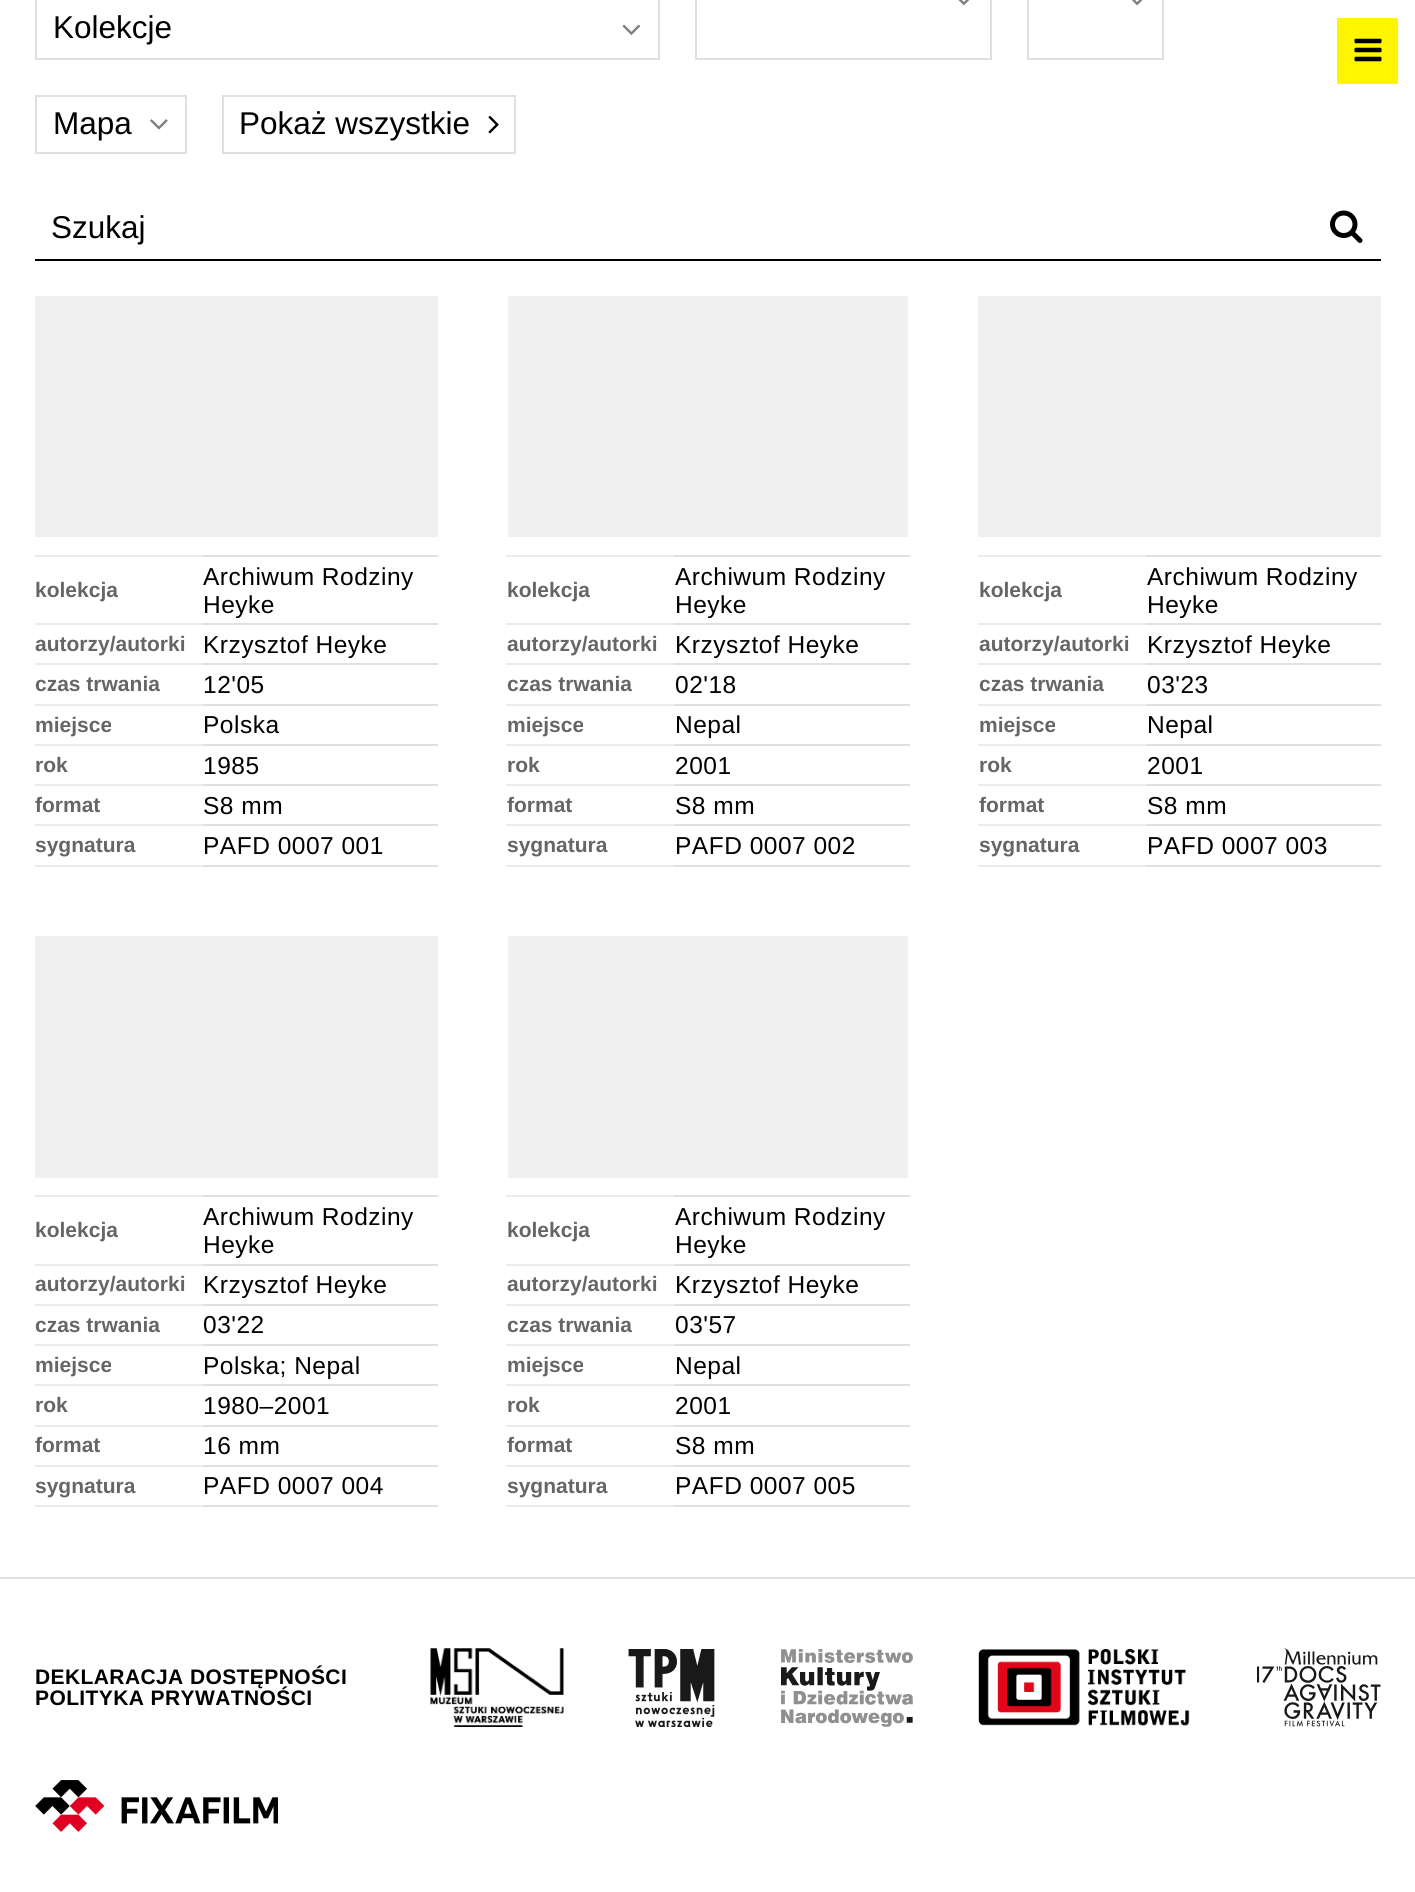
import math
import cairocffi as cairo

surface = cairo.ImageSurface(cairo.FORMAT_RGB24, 1415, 1892)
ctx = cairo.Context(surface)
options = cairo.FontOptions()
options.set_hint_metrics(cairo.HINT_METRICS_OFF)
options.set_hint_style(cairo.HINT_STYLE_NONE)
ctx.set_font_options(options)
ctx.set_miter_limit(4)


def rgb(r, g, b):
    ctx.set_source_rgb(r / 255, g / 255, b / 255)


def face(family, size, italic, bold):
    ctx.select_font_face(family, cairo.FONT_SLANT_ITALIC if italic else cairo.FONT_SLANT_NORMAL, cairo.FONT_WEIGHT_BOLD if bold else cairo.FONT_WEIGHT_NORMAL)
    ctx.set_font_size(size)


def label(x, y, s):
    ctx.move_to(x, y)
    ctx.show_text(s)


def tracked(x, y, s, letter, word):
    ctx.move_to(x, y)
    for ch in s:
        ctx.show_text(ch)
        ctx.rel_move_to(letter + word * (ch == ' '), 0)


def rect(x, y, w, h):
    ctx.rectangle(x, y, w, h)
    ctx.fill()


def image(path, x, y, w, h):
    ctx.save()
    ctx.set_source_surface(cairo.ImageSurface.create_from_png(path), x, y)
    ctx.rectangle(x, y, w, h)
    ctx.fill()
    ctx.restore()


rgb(255, 255, 255)
ctx.paint()
rgb(236, 236, 236)
rect(506, 1264, 170, 2)
rect(506, 1195, 170, 2)
rect(506, 1304, 170, 2)
rect(506, 1344, 170, 2)
rect(506, 1384, 170, 2)
rect(506, 1425, 170, 2)
rect(506, 1465, 170, 2)
rect(506, 1505, 170, 2)
rect(35, 1264, 170, 2)
rect(35, 1195, 170, 2)
rect(35, 1304, 170, 2)
rect(35, 1344, 170, 2)
rect(35, 1384, 170, 2)
rect(35, 1425, 170, 2)
rect(35, 1465, 170, 2)
rect(35, 1505, 170, 2)
rect(978, 623, 170, 2)
rect(978, 555, 170, 2)
rect(978, 663, 170, 2)
rect(978, 704, 170, 2)
rect(978, 744, 170, 2)
rect(978, 784, 170, 2)
rect(978, 824, 170, 2)
rect(978, 865, 170, 2)
rect(506, 623, 170, 2)
rect(506, 555, 170, 2)
rect(506, 663, 170, 2)
rect(506, 704, 170, 2)
rect(506, 744, 170, 2)
rect(506, 784, 170, 2)
rect(506, 824, 170, 2)
rect(506, 865, 170, 2)
rect(35, 623, 170, 2)
rect(35, 555, 170, 2)
rect(35, 663, 170, 2)
rect(35, 704, 170, 2)
rect(35, 744, 170, 2)
rect(35, 784, 170, 2)
rect(35, 824, 170, 2)
rect(35, 865, 170, 2)
ctx.rectangle(36, -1, 623, 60)
rgb(224, 224, 224)
ctx.stroke()
face('Liberation Sans', 31.5, 0, 0)
rgb(0, 0, 0)
label(53, 38, 'Kolekcje')
image('image0.png', 622, 24, 19, 11)
ctx.rectangle(696, -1, 295, 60)
rgb(224, 224, 224)
ctx.stroke()
image('image1.png', 958, 0, 12, 6)
ctx.rectangle(1028, -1, 135, 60)
ctx.stroke()
image('image2.png', 1131, 0, 12, 6)
ctx.rectangle(36, 96, 150, 57)
ctx.stroke()
rgb(0, 0, 0)
label(53, 134, 'Mapa')
image('image3.png', 150, 119, 18, 11)
ctx.rectangle(223, 96, 292, 57)
rgb(224, 224, 224)
ctx.stroke()
rgb(0, 0, 0)
label(239, 134, 'Pokaż wszystkie')
image('image4.png', 488, 115, 11, 19)
rect(35, 259, 1346, 2)
label(51, 238, 'Szukaj')
image('image5.png', 1330, 210, 33, 33)
rgb(240, 240, 240)
rect(35, 296, 403, 241)
face('Liberation Sans', 21, 0, 1)
rgb(102, 102, 102)
label(35, 597, 'kolekcja')
rgb(224, 224, 224)
rect(203, 555, 235, 2)
rect(203, 623, 235, 2)
face('Liberation Sans', 24.5, 0, 0)
rgb(0, 0, 0)
tracked(203, 585, 'Archiwum Rodziny', 0.5, 0)
tracked(203, 613, 'Heyke', 0.5, 0)
face('Liberation Sans', 21, 0, 1)
rgb(102, 102, 102)
label(35, 651, 'autorzy/autorki')
rgb(224, 224, 224)
rect(203, 663, 235, 2)
face('Liberation Sans', 24.5, 0, 0)
rgb(0, 0, 0)
tracked(203, 653, 'Krzysztof Heyke', 0.5, 0)
face('Liberation Sans', 21, 0, 1)
rgb(102, 102, 102)
label(35, 691, 'czas trwania')
rgb(224, 224, 224)
rect(203, 704, 235, 2)
face('Liberation Sans', 24.5, 0, 0)
rgb(0, 0, 0)
tracked(203, 693, '12\'05', 0.5, 0)
face('Liberation Sans', 21, 0, 1)
rgb(102, 102, 102)
label(35, 732, 'miejsce')
rgb(224, 224, 224)
rect(203, 744, 235, 2)
face('Liberation Sans', 24.5, 0, 0)
rgb(0, 0, 0)
tracked(203, 733, 'Polska', 0.5, 0)
face('Liberation Sans', 21, 0, 1)
rgb(102, 102, 102)
label(35, 772, 'rok')
rgb(224, 224, 224)
rect(203, 784, 235, 2)
face('Liberation Sans', 24.5, 0, 0)
rgb(0, 0, 0)
tracked(203, 774, '1985', 0.5, 0)
face('Liberation Sans', 21, 0, 1)
rgb(102, 102, 102)
label(35, 812, 'format')
rgb(224, 224, 224)
rect(203, 824, 235, 2)
face('Liberation Sans', 24.5, 0, 0)
rgb(0, 0, 0)
tracked(203, 814, 'S8 mm', 0.5, 0)
face('Liberation Sans', 21, 0, 1)
rgb(102, 102, 102)
label(35, 852, 'sygnatura')
rgb(224, 224, 224)
rect(203, 865, 235, 2)
face('Liberation Sans', 24.5, 0, 0)
rgb(0, 0, 0)
tracked(203, 854, 'PAFD 0007 001', 0.5, 0)
rgb(240, 240, 240)
rect(508, 296, 400, 241)
face('Liberation Sans', 21, 0, 1)
rgb(102, 102, 102)
label(507, 597, 'kolekcja')
rgb(224, 224, 224)
rect(674, 555, 236, 2)
rect(674, 623, 236, 2)
face('Liberation Sans', 24.5, 0, 0)
rgb(0, 0, 0)
tracked(675, 585, 'Archiwum Rodziny', 0.5, 0)
tracked(675, 613, 'Heyke', 0.5, 0)
face('Liberation Sans', 21, 0, 1)
rgb(102, 102, 102)
label(507, 651, 'autorzy/autorki')
rgb(224, 224, 224)
rect(674, 663, 236, 2)
face('Liberation Sans', 24.5, 0, 0)
rgb(0, 0, 0)
tracked(675, 653, 'Krzysztof Heyke', 0.5, 0)
face('Liberation Sans', 21, 0, 1)
rgb(102, 102, 102)
label(507, 691, 'czas trwania')
rgb(224, 224, 224)
rect(674, 704, 236, 2)
face('Liberation Sans', 24.5, 0, 0)
rgb(0, 0, 0)
tracked(675, 693, '02\'18', 0.5, 0)
face('Liberation Sans', 21, 0, 1)
rgb(102, 102, 102)
label(507, 732, 'miejsce')
rgb(224, 224, 224)
rect(674, 744, 236, 2)
face('Liberation Sans', 24.5, 0, 0)
rgb(0, 0, 0)
tracked(675, 733, 'Nepal', 0.5, 0)
face('Liberation Sans', 21, 0, 1)
rgb(102, 102, 102)
label(507, 772, 'rok')
rgb(224, 224, 224)
rect(674, 784, 236, 2)
face('Liberation Sans', 24.5, 0, 0)
rgb(0, 0, 0)
tracked(675, 774, '2001', 0.5, 0)
face('Liberation Sans', 21, 0, 1)
rgb(102, 102, 102)
label(507, 812, 'format')
rgb(224, 224, 224)
rect(674, 824, 236, 2)
face('Liberation Sans', 24.5, 0, 0)
rgb(0, 0, 0)
tracked(675, 814, 'S8 mm', 0.5, 0)
face('Liberation Sans', 21, 0, 1)
rgb(102, 102, 102)
label(507, 852, 'sygnatura')
rgb(224, 224, 224)
rect(674, 865, 236, 2)
face('Liberation Sans', 24.5, 0, 0)
rgb(0, 0, 0)
tracked(675, 854, 'PAFD 0007 002', 0.5, 0)
rgb(240, 240, 240)
rect(978, 296, 403, 241)
face('Liberation Sans', 21, 0, 1)
rgb(102, 102, 102)
label(979, 597, 'kolekcja')
rgb(224, 224, 224)
rect(1146, 555, 235, 2)
rect(1146, 623, 235, 2)
face('Liberation Sans', 24.5, 0, 0)
rgb(0, 0, 0)
tracked(1147, 585, 'Archiwum Rodziny', 0.5, 0)
tracked(1147, 613, 'Heyke', 0.5, 0)
face('Liberation Sans', 21, 0, 1)
rgb(102, 102, 102)
label(979, 651, 'autorzy/autorki')
rgb(224, 224, 224)
rect(1146, 663, 235, 2)
face('Liberation Sans', 24.5, 0, 0)
rgb(0, 0, 0)
tracked(1147, 653, 'Krzysztof Heyke', 0.5, 0)
face('Liberation Sans', 21, 0, 1)
rgb(102, 102, 102)
label(979, 691, 'czas trwania')
rgb(224, 224, 224)
rect(1146, 704, 235, 2)
face('Liberation Sans', 24.5, 0, 0)
rgb(0, 0, 0)
tracked(1147, 693, '03\'23', 0.5, 0)
face('Liberation Sans', 21, 0, 1)
rgb(102, 102, 102)
label(979, 732, 'miejsce')
rgb(224, 224, 224)
rect(1146, 744, 235, 2)
face('Liberation Sans', 24.5, 0, 0)
rgb(0, 0, 0)
tracked(1147, 733, 'Nepal', 0.5, 0)
face('Liberation Sans', 21, 0, 1)
rgb(102, 102, 102)
label(979, 772, 'rok')
rgb(224, 224, 224)
rect(1146, 784, 235, 2)
face('Liberation Sans', 24.5, 0, 0)
rgb(0, 0, 0)
tracked(1147, 774, '2001', 0.5, 0)
face('Liberation Sans', 21, 0, 1)
rgb(102, 102, 102)
label(979, 812, 'format')
rgb(224, 224, 224)
rect(1146, 824, 235, 2)
face('Liberation Sans', 24.5, 0, 0)
rgb(0, 0, 0)
tracked(1147, 814, 'S8 mm', 0.5, 0)
face('Liberation Sans', 21, 0, 1)
rgb(102, 102, 102)
label(979, 852, 'sygnatura')
rgb(224, 224, 224)
rect(1146, 865, 235, 2)
face('Liberation Sans', 24.5, 0, 0)
rgb(0, 0, 0)
tracked(1147, 854, 'PAFD 0007 003', 0.5, 0)
rgb(240, 240, 240)
rect(35, 936, 403, 242)
face('Liberation Sans', 21, 0, 1)
rgb(102, 102, 102)
label(35, 1237, 'kolekcja')
rgb(224, 224, 224)
rect(203, 1195, 235, 2)
rect(203, 1264, 235, 2)
face('Liberation Sans', 24.5, 0, 0)
rgb(0, 0, 0)
tracked(203, 1225, 'Archiwum Rodziny', 0.5, 0)
tracked(203, 1253, 'Heyke', 0.5, 0)
face('Liberation Sans', 21, 0, 1)
rgb(102, 102, 102)
label(35, 1291, 'autorzy/autorki')
rgb(224, 224, 224)
rect(203, 1304, 235, 2)
face('Liberation Sans', 24.5, 0, 0)
rgb(0, 0, 0)
tracked(203, 1293, 'Krzysztof Heyke', 0.5, 0)
face('Liberation Sans', 21, 0, 1)
rgb(102, 102, 102)
label(35, 1332, 'czas trwania')
rgb(224, 224, 224)
rect(203, 1344, 235, 2)
face('Liberation Sans', 24.5, 0, 0)
rgb(0, 0, 0)
tracked(203, 1333, '03\'22', 0.5, 0)
face('Liberation Sans', 21, 0, 1)
rgb(102, 102, 102)
label(35, 1372, 'miejsce')
rgb(224, 224, 224)
rect(203, 1384, 235, 2)
face('Liberation Sans', 24.5, 0, 0)
rgb(0, 0, 0)
tracked(203, 1374, 'Polska; Nepal', 0.5, 0)
face('Liberation Sans', 21, 0, 1)
rgb(102, 102, 102)
label(35, 1412, 'rok')
rgb(224, 224, 224)
rect(203, 1425, 235, 2)
face('Liberation Sans', 24.5, 0, 0)
rgb(0, 0, 0)
tracked(203, 1414, '1980–2001', 0.5, 0)
face('Liberation Sans', 21, 0, 1)
rgb(102, 102, 102)
label(35, 1452, 'format')
rgb(224, 224, 224)
rect(203, 1465, 235, 2)
face('Liberation Sans', 24.5, 0, 0)
rgb(0, 0, 0)
tracked(203, 1454, '16 mm', 0.5, 0)
face('Liberation Sans', 21, 0, 1)
rgb(102, 102, 102)
label(35, 1493, 'sygnatura')
rgb(224, 224, 224)
rect(203, 1505, 235, 2)
face('Liberation Sans', 24.5, 0, 0)
rgb(0, 0, 0)
tracked(203, 1494, 'PAFD 0007 004', 0.5, 0)
rgb(240, 240, 240)
rect(508, 936, 400, 242)
face('Liberation Sans', 21, 0, 1)
rgb(102, 102, 102)
label(507, 1237, 'kolekcja')
rgb(224, 224, 224)
rect(674, 1195, 236, 2)
rect(674, 1264, 236, 2)
face('Liberation Sans', 24.5, 0, 0)
rgb(0, 0, 0)
tracked(675, 1225, 'Archiwum Rodziny', 0.5, 0)
tracked(675, 1253, 'Heyke', 0.5, 0)
face('Liberation Sans', 21, 0, 1)
rgb(102, 102, 102)
label(507, 1291, 'autorzy/autorki')
rgb(224, 224, 224)
rect(674, 1304, 236, 2)
face('Liberation Sans', 24.5, 0, 0)
rgb(0, 0, 0)
tracked(675, 1293, 'Krzysztof Heyke', 0.5, 0)
face('Liberation Sans', 21, 0, 1)
rgb(102, 102, 102)
label(507, 1332, 'czas trwania')
rgb(224, 224, 224)
rect(674, 1344, 236, 2)
face('Liberation Sans', 24.5, 0, 0)
rgb(0, 0, 0)
tracked(675, 1333, '03\'57', 0.5, 0)
face('Liberation Sans', 21, 0, 1)
rgb(102, 102, 102)
label(507, 1372, 'miejsce')
rgb(224, 224, 224)
rect(674, 1384, 236, 2)
face('Liberation Sans', 24.5, 0, 0)
rgb(0, 0, 0)
tracked(675, 1374, 'Nepal', 0.5, 0)
face('Liberation Sans', 21, 0, 1)
rgb(102, 102, 102)
label(507, 1412, 'rok')
rgb(224, 224, 224)
rect(674, 1425, 236, 2)
face('Liberation Sans', 24.5, 0, 0)
rgb(0, 0, 0)
tracked(675, 1414, '2001', 0.5, 0)
face('Liberation Sans', 21, 0, 1)
rgb(102, 102, 102)
label(507, 1452, 'format')
rgb(224, 224, 224)
rect(674, 1465, 236, 2)
face('Liberation Sans', 24.5, 0, 0)
rgb(0, 0, 0)
tracked(675, 1454, 'S8 mm', 0.5, 0)
face('Liberation Sans', 21, 0, 1)
rgb(102, 102, 102)
label(507, 1493, 'sygnatura')
rgb(224, 224, 224)
rect(674, 1505, 236, 2)
face('Liberation Sans', 24.5, 0, 0)
rgb(0, 0, 0)
tracked(675, 1494, 'PAFD 0007 005', 0.5, 0)
rgb(224, 224, 224)
rect(0, 1577, 1415, 2)
face('Liberation Sans', 21, 0, 1)
rgb(0, 0, 0)
tracked(35, 1684, 'DEKLARACJA DOSTĘPNOŚCI', 0.4, 0)
tracked(35, 1705, 'POLITYKA PRYWATNOŚCI', 0.4, 0)
image('image6.png', 430, 1648, 134, 79)
image('image7.png', 628, 1649, 87, 78)
image('image8.png', 781, 1649, 132, 78)
image('image9.png', 978, 1649, 212, 77)
image('image10.png', 1257, 1648, 124, 79)
image('image11.png', 35, 1780, 243, 52)
rgb(255, 245, 0)
rect(1337, 18, 61, 66)
image('image12.png', 1354, 38, 28, 24)
surface.write_to_png('render.png')
